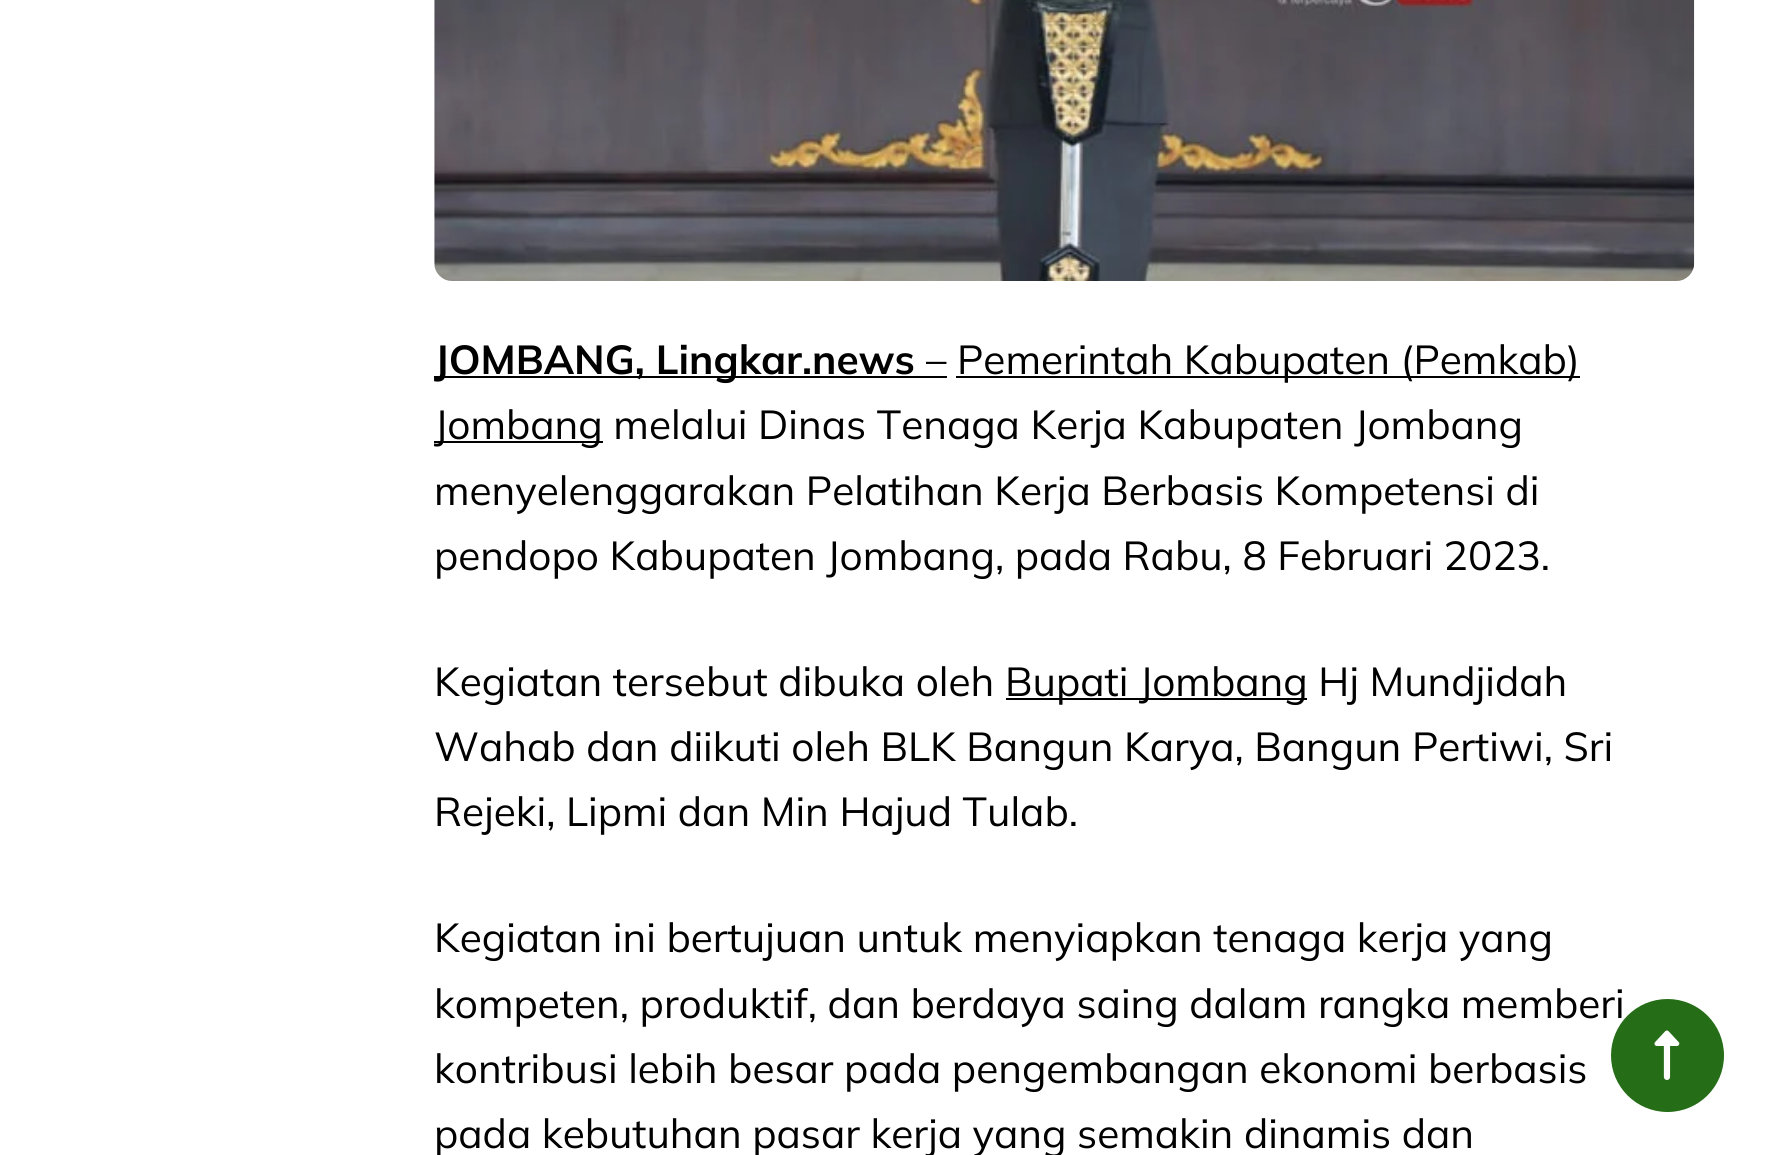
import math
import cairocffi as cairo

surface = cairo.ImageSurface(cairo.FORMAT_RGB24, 1767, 1155)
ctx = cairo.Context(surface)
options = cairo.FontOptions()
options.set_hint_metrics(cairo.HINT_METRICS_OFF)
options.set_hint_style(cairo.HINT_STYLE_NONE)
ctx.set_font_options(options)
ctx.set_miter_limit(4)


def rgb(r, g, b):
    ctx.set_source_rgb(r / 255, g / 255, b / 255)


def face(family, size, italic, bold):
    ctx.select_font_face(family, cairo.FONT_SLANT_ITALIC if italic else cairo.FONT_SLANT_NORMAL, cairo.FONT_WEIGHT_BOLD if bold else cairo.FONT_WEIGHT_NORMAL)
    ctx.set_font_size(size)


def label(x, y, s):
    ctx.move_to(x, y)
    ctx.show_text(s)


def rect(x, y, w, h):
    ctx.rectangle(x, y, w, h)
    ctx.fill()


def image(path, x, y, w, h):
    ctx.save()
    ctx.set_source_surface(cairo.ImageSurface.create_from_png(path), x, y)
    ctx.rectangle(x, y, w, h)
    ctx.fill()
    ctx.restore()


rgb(255, 255, 255)
ctx.paint()
image('image0.png', 434, 0, 1261, 281)
rgb(0, 0, 0)
rect(434, 376, 513, 2)
face('Mulish', 40.5, 0, 1)
label(434, 374, 'JOMBANG, Lingkar.news')
face('Mulish', 40.5, 0, 0)
label(926, 374, '–')
rect(956, 376, 624, 2)
label(957, 374, 'Pemerintah Kabupaten (Pemkab)')
rect(434, 441, 169, 2)
label(434, 439, 'Jombang melalui Dinas Tenaga Kerja Kabupaten Jombang')
label(434, 505, 'menyelenggarakan Pelatihan Kerja Berbasis Kompetensi di')
label(434, 570, 'pendopo Kabupaten Jombang, pada Rabu, 8 Februari 2023.')
label(434, 696, 'Kegiatan tersebut dibuka oleh')
rect(1006, 698, 301, 2)
label(1005, 696, 'Bupati Jombang Hj Mundjidah')
label(434, 761, 'Wahab dan diikuti oleh BLK Bangun Karya, Bangun Pertiwi, Sri')
label(434, 826, 'Rejeki, Lipmi dan Min Hajud Tulab.')
label(434, 952, 'Kegiatan ini bertujuan untuk menyiapkan tenaga kerja yang')
label(434, 1018, 'kompeten, produktif, dan berdaya saing dalam rangka memberi')
label(434, 1083, 'kontribusi lebih besar pada pengembangan ekonomi berbasis')
label(434, 1148, 'pada kebutuhan pasar kerja yang semakin dinamis dan')
rgb(37, 109, 23)
ctx.new_path()
ctx.arc(1667.5, 1055.5, 56.5, 0, 2 * math.pi)
ctx.fill()
image('image1.png', 1654, 1030, 26, 50)
surface.write_to_png('render.png')
